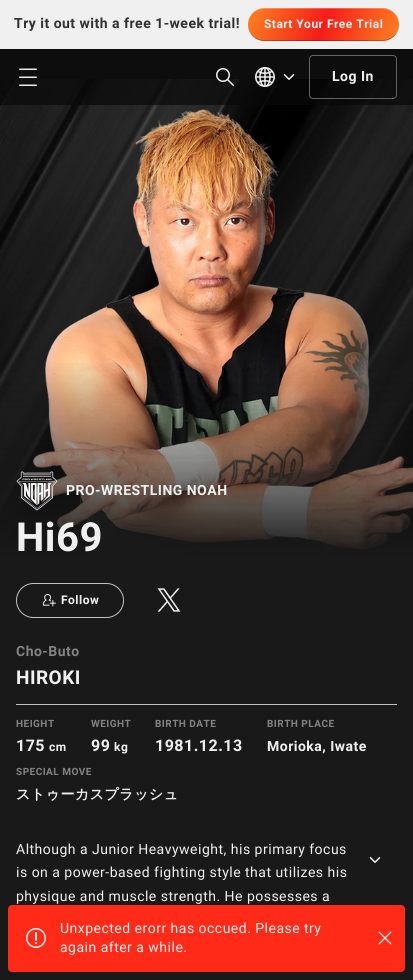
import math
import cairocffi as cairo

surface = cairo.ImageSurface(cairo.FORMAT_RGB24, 413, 980)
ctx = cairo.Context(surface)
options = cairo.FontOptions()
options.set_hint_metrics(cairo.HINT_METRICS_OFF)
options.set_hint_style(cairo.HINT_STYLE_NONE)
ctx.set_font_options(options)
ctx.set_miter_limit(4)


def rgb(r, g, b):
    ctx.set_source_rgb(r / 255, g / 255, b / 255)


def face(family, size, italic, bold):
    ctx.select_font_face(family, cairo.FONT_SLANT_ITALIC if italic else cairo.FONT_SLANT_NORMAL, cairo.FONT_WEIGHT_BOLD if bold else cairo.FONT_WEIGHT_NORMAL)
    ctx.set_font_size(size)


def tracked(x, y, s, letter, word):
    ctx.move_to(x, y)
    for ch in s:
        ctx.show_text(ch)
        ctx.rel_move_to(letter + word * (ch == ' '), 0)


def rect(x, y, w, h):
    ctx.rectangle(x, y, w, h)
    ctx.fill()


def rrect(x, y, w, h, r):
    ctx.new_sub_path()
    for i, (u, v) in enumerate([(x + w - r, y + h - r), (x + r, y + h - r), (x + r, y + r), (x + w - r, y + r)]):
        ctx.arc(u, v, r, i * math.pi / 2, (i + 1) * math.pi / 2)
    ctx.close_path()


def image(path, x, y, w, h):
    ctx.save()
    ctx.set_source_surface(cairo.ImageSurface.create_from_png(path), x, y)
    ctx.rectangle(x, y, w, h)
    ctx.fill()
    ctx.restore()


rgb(25, 25, 25)
ctx.paint()
rgb(240, 240, 240)
rect(0, 0, 413, 49)
face('Heebo', 14, 0, 1)
rgb(50, 50, 50)
tracked(14, 28, 'Try it out with a free 1-week trial!', 0.48, 0)
gradient = cairo.LinearGradient(252, -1.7, 395, 51)
gradient.add_color_stop_rgba(0, 0.992, 0.51, 0.129, 1)
gradient.add_color_stop_rgba(0.5, 0.961, 0.11, 0.102, 1)
gradient.add_color_stop_rgba(1, 0.992, 0.51, 0.129, 1)
ctx.set_source(gradient)
rrect(248, 8, 151, 33, 16.5)
ctx.fill()
ctx.set_source_rgba(0, 0, 0, 0.25)
ctx.new_path()
ctx.move_to(248, 24)
ctx.curve_to(248, 34, 255, 41, 264, 41)
ctx.line_to(382, 41)
ctx.curve_to(392, 41, 399, 34, 399, 24)
ctx.curve_to(399, 33, 392, 40, 382, 40)
ctx.line_to(264, 40)
ctx.curve_to(255, 40, 248, 33, 248, 24)
ctx.close_path()
ctx.fill()
ctx.set_source_rgba(1, 1, 1, 0.25)
ctx.new_path()
ctx.move_to(264, 9)
ctx.line_to(382, 9)
ctx.curve_to(392, 9, 399, 16, 399, 25)
ctx.line_to(399, 24)
ctx.curve_to(399, 15, 392, 8, 382, 8)
ctx.line_to(264, 8)
ctx.curve_to(255, 8, 248, 15, 248, 24)
ctx.line_to(248, 25)
ctx.curve_to(248, 16, 255, 9, 264, 9)
ctx.close_path()
ctx.fill()
face('Heebo', 12, 0, 1)
rgb(240, 240, 240)
tracked(264, 28, 'Start Your Free Trial', 0.48, 0)
image('image4.png', 0, 79, 413, 479)
ctx.set_source_rgba(0.039, 0.039, 0.039, 0.7)
rect(0, 49, 413, 56)
image('image0.png', 19, 68, 18, 18)
image('image1.png', 216, 68, 18, 18)
image('image2.png', 255, 67, 20, 20)
image('image3.png', 283, 74, 12, 6)
rrect(309.5, 55.5, 87, 43, 3.5)
rgb(99, 99, 99)
ctx.set_line_width(1)
ctx.stroke()
face('Heebo', 14, 0, 1)
rgb(240, 240, 240)
tracked(332, 81, 'Log In', 0.48, 0)
image('image5.png', 32, 109, 381, 449)
gradient = cairo.LinearGradient(207, 559, 207, 359)
gradient.add_color_stop_rgba(0, 0.098, 0.098, 0.098, 1)
gradient.add_color_stop_rgba(1, 0.098, 0.098, 0.098, 0)
ctx.set_source(gradient)
rect(0, 363, 413, 195)
image('image6.png', 16, 471, 42, 40)
rgb(240, 240, 240)
tracked(66, 495, 'PRO-WRESTLING NOAH', 0.48, 0)
face('Heebo', 40, 0, 1)
tracked(16, 551, 'Hi69', 0.48, 0)
rrect(16.5, 583.5, 107, 34, 17)
rgb(193, 193, 193)
ctx.stroke()
image('image7.png', 43, 594, 13, 13)
face('Heebo', 12, 0, 1)
rgb(240, 240, 240)
tracked(61, 604, 'Follow', 0.48, 0)
image('image8.png', 157, 588, 24, 24)
face('Heebo', 14, 0, 1)
rgb(130, 130, 130)
tracked(16, 656, 'Cho-Buto', 0.48, 0)
face('Heebo', 19, 0, 1)
rgb(240, 240, 240)
tracked(16, 684, 'HIROKI', 0.48, 0)
rgb(193, 193, 193)
rect(16, 704, 381, 1)
face('Heebo', 10, 0, 1)
rgb(130, 130, 130)
tracked(16, 727, 'HEIGHT', 0.48, 0)
face('Heebo', 16, 0, 1)
rgb(240, 240, 240)
tracked(16, 751, '175', 0.48, 0)
face('Heebo', 12, 0, 1)
tracked(49, 751, 'cm', 0.48, 0)
face('Heebo', 10, 0, 1)
rgb(130, 130, 130)
tracked(91, 727, 'WEIGHT', 0.48, 0)
face('Heebo', 16, 0, 1)
rgb(240, 240, 240)
tracked(91, 751, '99', 0.48, 0)
face('Heebo', 12, 0, 1)
tracked(114, 751, 'kg', 0.48, 0)
face('Heebo', 10, 0, 1)
rgb(130, 130, 130)
tracked(155, 727, 'BIRTH DATE', 0.48, 0)
face('Heebo', 16, 0, 1)
rgb(240, 240, 240)
tracked(155, 751, '1981.12.13', 0.48, 0)
face('Heebo', 10, 0, 1)
rgb(130, 130, 130)
tracked(267, 727, 'BIRTH PLACE', 0.48, 0)
face('Heebo', 14, 0, 1)
rgb(240, 240, 240)
tracked(267, 751, 'Morioka, Iwate', 0.48, 0)
face('Heebo', 10, 0, 1)
rgb(130, 130, 130)
tracked(16, 775, 'SPECIAL MOVE', 0.48, 0)
face('WenQuanYi Zen Hei', 14, 0, 1)
rgb(240, 240, 240)
tracked(16, 799, 'ストゥーカスプラッシュ', 0.48, 0)
face('Heebo', 14, 0, 0)
tracked(16, 854, 'Although a Junior Heavyweight, his primary focus', 0.48, 0)
tracked(16, 877, 'is on a power-based fighting style that utilizes his', 0.48, 0)
tracked(16, 901, 'physique and muscle strength. He possesses a', 0.48, 0)
image('image9.png', 369, 857, 12, 6)
rgb(255, 42, 23)
rrect(8, 905, 397, 67, 4)
ctx.fill()
image('image10.png', 26, 928, 20, 20)
rgb(240, 240, 240)
tracked(60, 933, 'Unxpected erorr has occued. Please try', 0.48, 0)
tracked(60, 952, 'again after a while.', 0.48, 0)
image('image11.png', 378, 931, 14, 14)
surface.write_to_png('render.png')
